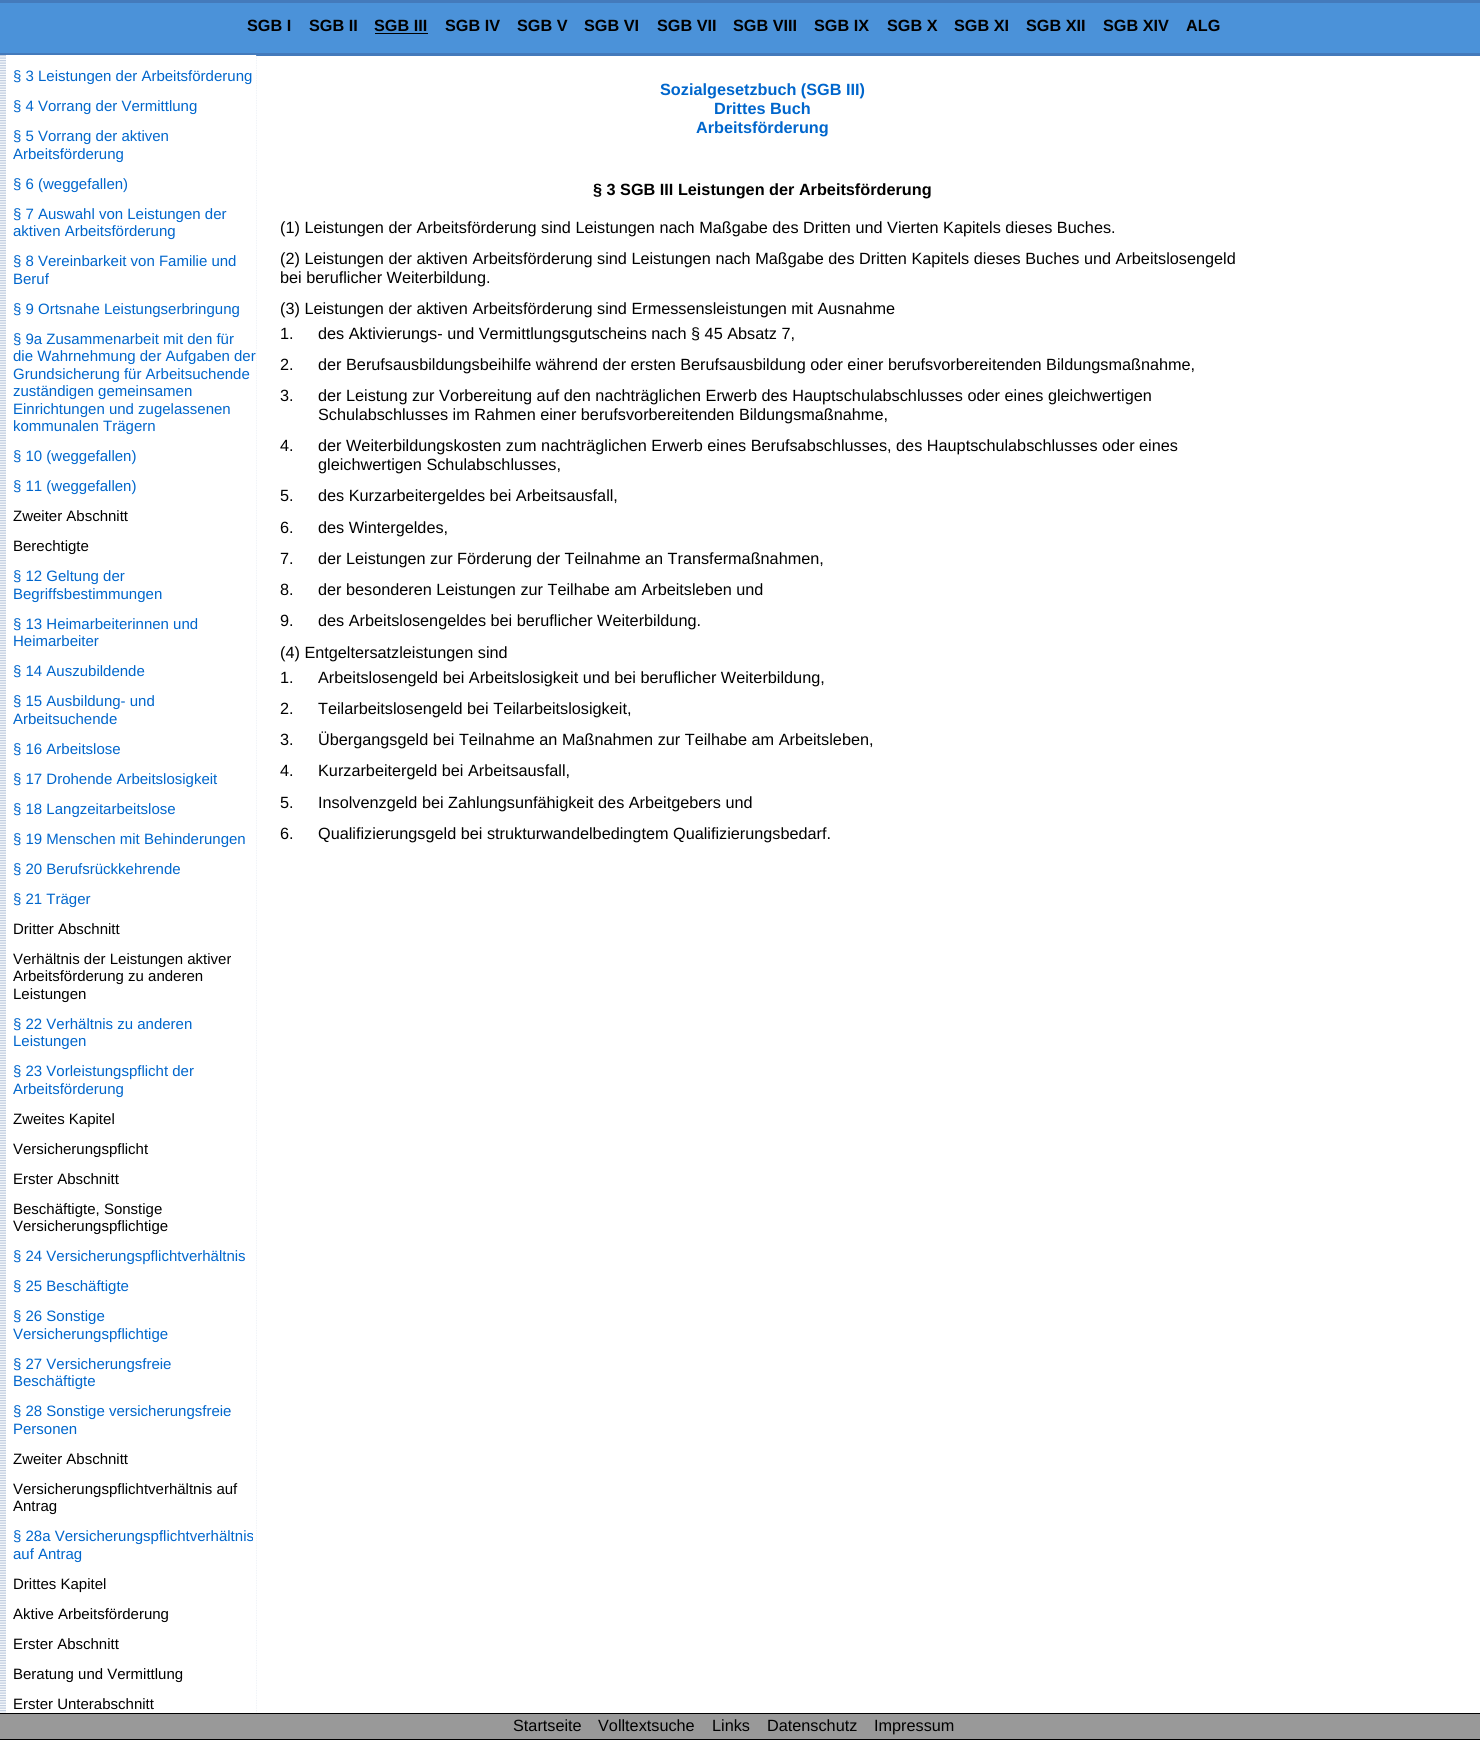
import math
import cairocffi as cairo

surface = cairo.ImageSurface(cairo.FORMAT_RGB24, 1480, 1740)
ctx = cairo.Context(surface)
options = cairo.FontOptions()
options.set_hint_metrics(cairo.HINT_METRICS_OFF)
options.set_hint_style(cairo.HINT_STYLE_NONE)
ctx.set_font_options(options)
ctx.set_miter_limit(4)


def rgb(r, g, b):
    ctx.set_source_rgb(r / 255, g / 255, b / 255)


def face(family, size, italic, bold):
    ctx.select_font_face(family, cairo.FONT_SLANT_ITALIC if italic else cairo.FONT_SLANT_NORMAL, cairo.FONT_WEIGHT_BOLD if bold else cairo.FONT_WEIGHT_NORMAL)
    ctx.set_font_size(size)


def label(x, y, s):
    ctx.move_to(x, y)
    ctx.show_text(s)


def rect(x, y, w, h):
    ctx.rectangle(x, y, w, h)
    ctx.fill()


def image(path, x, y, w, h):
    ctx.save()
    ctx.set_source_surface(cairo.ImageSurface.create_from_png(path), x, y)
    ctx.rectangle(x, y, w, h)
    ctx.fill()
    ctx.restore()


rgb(255, 255, 255)
ctx.paint()
rgb(75, 146, 217)
rect(0, 3, 1480, 50)
rgb(68, 122, 187)
rect(0, 0, 1480, 3)
rect(0, 53, 1480, 3)
face('Liberation Sans', 16.25, 0, 1)
rgb(0, 0, 0)
label(247, 31, 'SGB I')
label(309, 31, 'SGB II')
label(374, 31, 'SGB III')
rect(375, 33, 53, 1)
label(445, 31, 'SGB IV')
label(517, 31, 'SGB V')
label(584, 31, 'SGB VI')
label(657, 31, 'SGB VII')
label(733, 31, 'SGB VIII')
label(814, 31, 'SGB IX')
label(887, 31, 'SGB X')
label(954, 31, 'SGB XI')
label(1026, 31, 'SGB XII')
label(1103, 31, 'SGB XIV')
label(1186, 31, 'ALG')
image('image0.png', 0, 55, 257, 1658)
rgb(255, 255, 255)
rect(6, 55, 250, 1658)
face('Liberation Sans', 15, 0, 0)
rgb(0, 102, 204)
label(13, 81, '§ 3 Leistungen der Arbeitsförderung')
label(13, 111, '§ 4 Vorrang der Vermittlung')
label(13, 141, '§ 5 Vorrang der aktiven')
label(13, 159, 'Arbeitsförderung')
label(13, 189, '§ 6 (weggefallen)')
label(13, 219, '§ 7 Auswahl von Leistungen der')
label(13, 236, 'aktiven Arbeitsförderung')
label(13, 266, '§ 8 Vereinbarkeit von Familie und')
label(13, 284, 'Beruf')
label(13, 314, '§ 9 Ortsnahe Leistungserbringung')
label(13, 344, '§ 9a Zusammenarbeit mit den für')
label(13, 361, 'die Wahrnehmung der Aufgaben der')
label(13, 379, 'Grundsicherung für Arbeitsuchende')
label(13, 396, 'zuständigen gemeinsamen')
label(13, 414, 'Einrichtungen und zugelassenen')
label(13, 431, 'kommunalen Trägern')
label(13, 461, '§ 10 (weggefallen)')
label(13, 491, '§ 11 (weggefallen)')
rgb(0, 0, 0)
label(13, 521, 'Zweiter Abschnitt')
label(13, 551, 'Berechtigte')
rgb(0, 102, 204)
label(13, 581, '§ 12 Geltung der')
label(13, 599, 'Begriffsbestimmungen')
label(13, 629, '§ 13 Heimarbeiterinnen und')
label(13, 646, 'Heimarbeiter')
label(13, 676, '§ 14 Auszubildende')
label(13, 706, '§ 15 Ausbildung- und')
label(13, 724, 'Arbeitsuchende')
label(13, 754, '§ 16 Arbeitslose')
label(13, 784, '§ 17 Drohende Arbeitslosigkeit')
label(13, 814, '§ 18 Langzeitarbeitslose')
label(13, 844, '§ 19 Menschen mit Behinderungen')
label(13, 874, '§ 20 Berufsrückkehrende')
label(13, 904, '§ 21 Träger')
rgb(0, 0, 0)
label(13, 934, 'Dritter Abschnitt')
label(13, 964, 'Verhältnis der Leistungen aktiver')
label(13, 981, 'Arbeitsförderung zu anderen')
label(13, 999, 'Leistungen')
rgb(0, 102, 204)
label(13, 1029, '§ 22 Verhältnis zu anderen')
label(13, 1046, 'Leistungen')
label(13, 1076, '§ 23 Vorleistungspflicht der')
label(13, 1094, 'Arbeitsförderung')
rgb(0, 0, 0)
label(13, 1124, 'Zweites Kapitel')
label(13, 1154, 'Versicherungspflicht')
label(13, 1184, 'Erster Abschnitt')
label(13, 1214, 'Beschäftigte, Sonstige')
label(13, 1231, 'Versicherungspflichtige')
rgb(0, 102, 204)
label(13, 1261, '§ 24 Versicherungspflichtverhältnis')
label(13, 1291, '§ 25 Beschäftigte')
label(13, 1321, '§ 26 Sonstige')
label(13, 1339, 'Versicherungspflichtige')
label(13, 1369, '§ 27 Versicherungsfreie')
label(13, 1386, 'Beschäftigte')
label(13, 1416, '§ 28 Sonstige versicherungsfreie')
label(13, 1434, 'Personen')
rgb(0, 0, 0)
label(13, 1464, 'Zweiter Abschnitt')
label(13, 1494, 'Versicherungspflichtverhältnis auf')
label(13, 1511, 'Antrag')
rgb(0, 102, 204)
label(13, 1541, '§ 28a Versicherungspflichtverhältnis')
label(13, 1559, 'auf Antrag')
rgb(0, 0, 0)
label(13, 1589, 'Drittes Kapitel')
label(13, 1619, 'Aktive Arbeitsförderung')
label(13, 1649, 'Erster Abschnitt')
label(13, 1679, 'Beratung und Vermittlung')
label(13, 1709, 'Erster Unterabschnitt')
face('Liberation Sans', 16.25, 0, 1)
rgb(0, 102, 204)
label(660, 95, 'Sozialgesetzbuch (SGB III)')
label(714, 114, 'Drittes Buch')
label(696, 133, 'Arbeitsförderung')
rgb(0, 0, 0)
label(593, 195, '§ 3 SGB III Leistungen der Arbeitsförderung')
face('Liberation Sans', 16.25, 0, 0)
label(280, 233, '(1) Leistungen der Arbeitsförderung sind Leistungen nach Maßgabe des Dritten und Vierten Kapitels dieses Buches.')
label(280, 264, '(2) Leistungen der aktiven Arbeitsförderung sind Leistungen nach Maßgabe des Dritten Kapitels dieses Buches und Arbeitslosengeld')
label(280, 283, 'bei beruflicher Weiterbildung.')
label(280, 314, '(3) Leistungen der aktiven Arbeitsförderung sind Ermessensleistungen mit Ausnahme')
label(280, 339, '1.')
label(318, 339, 'des Aktivierungs- und Vermittlungsgutscheins nach § 45 Absatz 7,')
label(280, 370, '2.')
label(318, 370, 'der Berufsausbildungsbeihilfe während der ersten Berufsausbildung oder einer berufsvorbereitenden Bildungsmaßnahme,')
label(280, 401, '3.')
label(318, 401, 'der Leistung zur Vorbereitung auf den nachträglichen Erwerb des Hauptschulabschlusses oder eines gleichwertigen')
label(318, 420, 'Schulabschlusses im Rahmen einer berufsvorbereitenden Bildungsmaßnahme,')
label(280, 451, '4.')
label(318, 451, 'der Weiterbildungskosten zum nachträglichen Erwerb eines Berufsabschlusses, des Hauptschulabschlusses oder eines')
label(318, 470, 'gleichwertigen Schulabschlusses,')
label(280, 501, '5.')
label(318, 501, 'des Kurzarbeitergeldes bei Arbeitsausfall,')
label(280, 533, '6.')
label(318, 533, 'des Wintergeldes,')
label(280, 564, '7.')
label(318, 564, 'der Leistungen zur Förderung der Teilnahme an Transfermaßnahmen,')
label(280, 595, '8.')
label(318, 595, 'der besonderen Leistungen zur Teilhabe am Arbeitsleben und')
label(280, 626, '9.')
label(318, 626, 'des Arbeitslosengeldes bei beruflicher Weiterbildung.')
label(280, 658, '(4) Entgeltersatzleistungen sind')
label(280, 683, '1.')
label(318, 683, 'Arbeitslosengeld bei Arbeitslosigkeit und bei beruflicher Weiterbildung,')
label(280, 714, '2.')
label(318, 714, 'Teilarbeitslosengeld bei Teilarbeitslosigkeit,')
label(280, 745, '3.')
label(318, 745, 'Übergangsgeld bei Teilnahme an Maßnahmen zur Teilhabe am Arbeitsleben,')
label(280, 776, '4.')
label(318, 776, 'Kurzarbeitergeld bei Arbeitsausfall,')
label(280, 808, '5.')
label(318, 808, 'Insolvenzgeld bei Zahlungsunfähigkeit des Arbeitgebers und')
label(280, 839, '6.')
label(318, 839, 'Qualifizierungsgeld bei strukturwandelbedingtem Qualifizierungsbedarf.')
rgb(153, 153, 153)
rect(0, 1714, 1480, 25)
rgb(0, 0, 0)
rect(0, 1713, 1480, 1)
rect(0, 1739, 1480, 1)
label(513, 1731, 'Startseite')
label(598, 1731, 'Volltextsuche')
label(712, 1731, 'Links')
label(767, 1731, 'Datenschutz')
label(874, 1731, 'Impressum')
surface.write_to_png('render.png')
